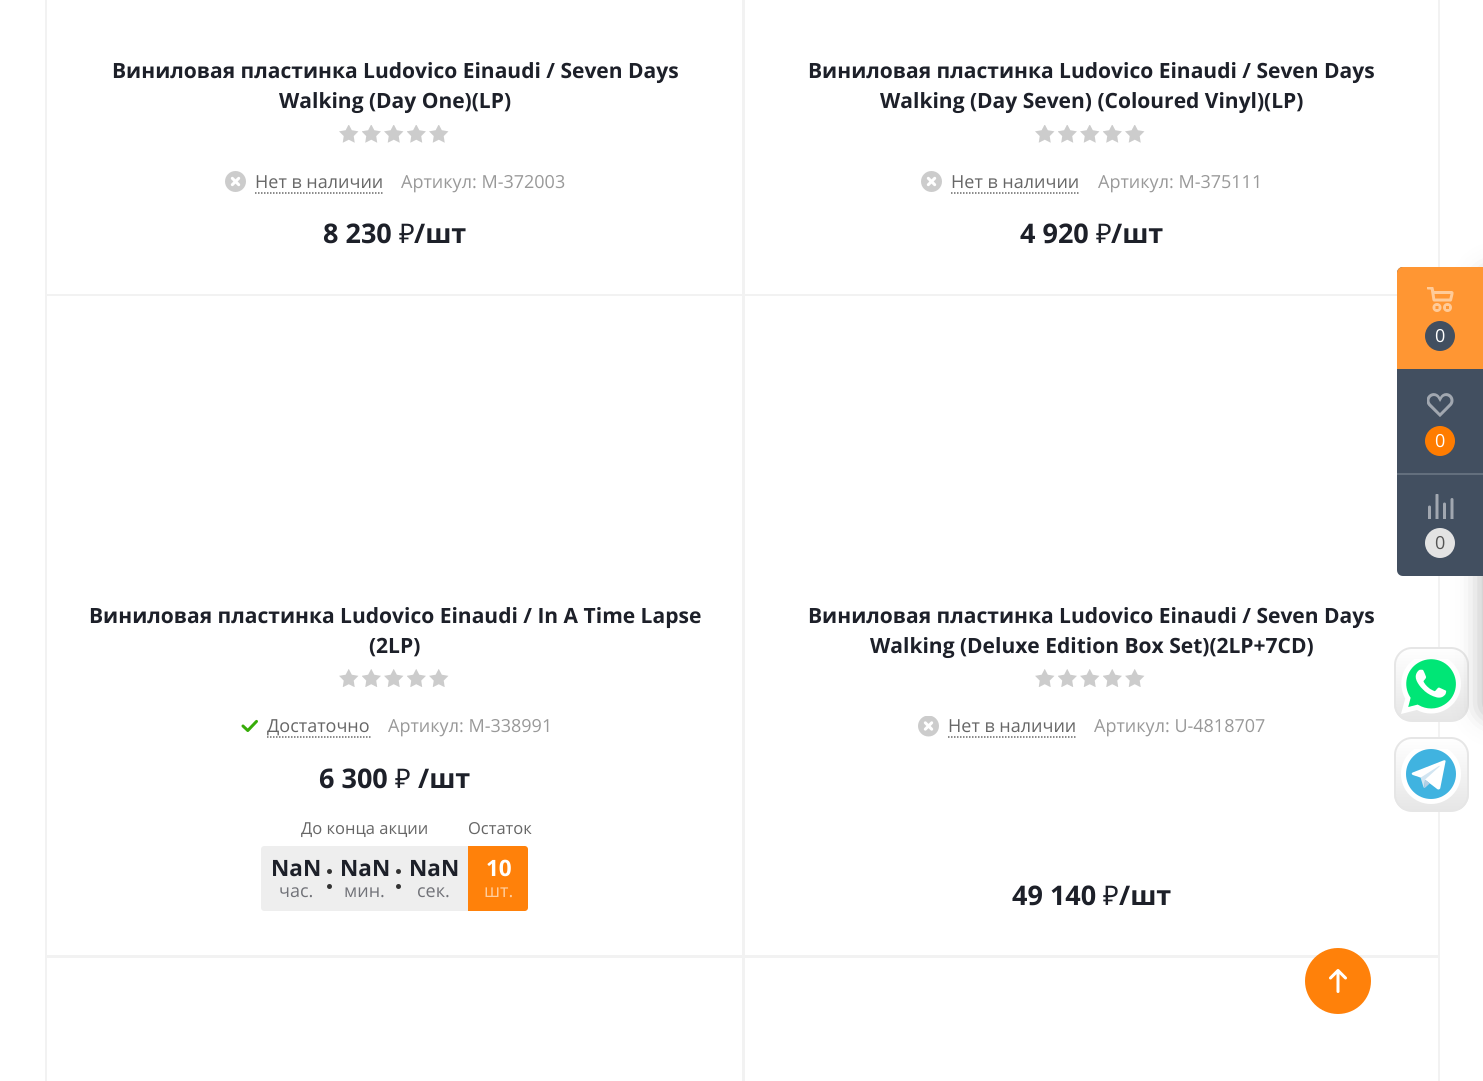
import math
import cairocffi as cairo

surface = cairo.ImageSurface(cairo.FORMAT_RGB24, 1483, 1081)
ctx = cairo.Context(surface)
options = cairo.FontOptions()
options.set_hint_metrics(cairo.HINT_METRICS_OFF)
options.set_hint_style(cairo.HINT_STYLE_NONE)
ctx.set_font_options(options)
ctx.set_miter_limit(4)


def rgb(r, g, b):
    ctx.set_source_rgb(r / 255, g / 255, b / 255)


def face(family, size, italic, bold):
    ctx.select_font_face(family, cairo.FONT_SLANT_ITALIC if italic else cairo.FONT_SLANT_NORMAL, cairo.FONT_WEIGHT_BOLD if bold else cairo.FONT_WEIGHT_NORMAL)
    ctx.set_font_size(size)


def label(x, y, s):
    ctx.move_to(x, y)
    ctx.show_text(s)


def rect(x, y, w, h):
    ctx.rectangle(x, y, w, h)
    ctx.fill()


def rrect(x, y, w, h, r):
    ctx.new_sub_path()
    for i, (u, v) in enumerate([(x + w - r, y + h - r), (x + r, y + h - r), (x + r, y + r), (x + w - r, y + r)]):
        ctx.arc(u, v, r, i * math.pi / 2, (i + 1) * math.pi / 2)
    ctx.close_path()


def soft_shadow(x, y, w, h, r, blur, alpha):
    ctx.push_group_with_content(cairo.CONTENT_ALPHA)
    ctx.set_operator(cairo.OPERATOR_SOURCE)
    for i in range(15, -16, -2):
        e = blur * i / 6
        if min(w, h) + 2 * e > 0:
            ctx.set_source_rgba(0, 0, 0, alpha * math.erfc((i - 1) / 8.5) / 2)
            rrect(x - e, y - e, w + 2 * e, h + 2 * e, max(0, min(r + e + blur * .6, min(w, h) / 2 + e)))
            ctx.fill()
    ctx.mask(ctx.pop_group())


def image(path, x, y, w, h):
    ctx.save()
    ctx.set_source_surface(cairo.ImageSurface.create_from_png(path), x, y)
    ctx.rectangle(x, y, w, h)
    ctx.fill()
    ctx.restore()


rgb(255, 255, 255)
ctx.paint()
ctx.rectangle(46, -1, 697, 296)
rgb(242, 242, 242)
ctx.stroke()
face('Open Sans', 21, 0, 1)
rgb(29, 32, 41)
label(112, 78, 'Виниловая пластинка Ludovico Einaudi / Seven Days')
label(279, 108, 'Walking (Day One)(LP)')
image('image0.png', 339, 125, 20, 18)
image('image1.png', 362, 125, 19, 18)
image('image0.png', 384, 125, 20, 18)
image('image1.png', 407, 125, 19, 18)
image('image0.png', 429, 125, 20, 18)
image('image2.png', 225, 171, 21, 21)
ctx.new_path()
ctx.move_to(255, 193)
ctx.line_to(382.5, 193)
rgb(102, 102, 102)
ctx.set_line_width(1.5)
ctx.set_dash([1.5, 1.5])
ctx.stroke()
face('Open Sans', 18, 0, 0)
label(255, 188, 'Нет в наличии')
rgb(153, 153, 153)
label(401, 188, 'Артикул: M-372003')
face('Open Sans', 27, 0, 1)
rgb(29, 32, 41)
label(323, 243, '8 230')
face('Noto Sans', 27, 0, 0)
label(399, 243, '₽')
face('Open Sans', 27, 0, 1)
label(414, 243, '/шт')
ctx.rectangle(744, -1, 695, 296)
rgb(242, 242, 242)
ctx.set_line_width(2)
ctx.set_dash([])
ctx.stroke()
face('Open Sans', 21, 0, 1)
rgb(29, 32, 41)
label(808, 78, 'Виниловая пластинка Ludovico Einaudi / Seven Days')
label(880, 108, 'Walking (Day Seven) (Coloured Vinyl)(LP)')
image('image0.png', 1035, 125, 20, 18)
image('image1.png', 1058, 125, 19, 18)
image('image0.png', 1080, 125, 20, 18)
image('image1.png', 1103, 125, 19, 18)
image('image0.png', 1125, 125, 20, 18)
image('image2.png', 921, 171, 21, 21)
ctx.new_path()
ctx.move_to(951, 193)
ctx.line_to(1080, 193)
rgb(102, 102, 102)
ctx.set_line_width(1.5)
ctx.set_dash([1.5, 1.5])
ctx.stroke()
face('Open Sans', 18, 0, 0)
label(951, 188, 'Нет в наличии')
rgb(153, 153, 153)
label(1098, 188, 'Артикул: M-375111')
face('Open Sans', 27, 0, 1)
rgb(29, 32, 41)
label(1020, 243, '4 920')
face('Noto Sans', 27, 0, 0)
label(1096, 243, '₽')
face('Open Sans', 27, 0, 1)
label(1111, 243, '/шт')
ctx.rectangle(46, 295, 697, 661)
rgb(242, 242, 242)
ctx.set_line_width(2)
ctx.set_dash([])
ctx.stroke()
face('Open Sans', 21, 0, 1)
rgb(29, 32, 41)
label(89, 623, 'Виниловая пластинка Ludovico Einaudi / In A Time Lapse')
label(369, 653, '(2LP)')
image('image3.png', 339, 669, 20, 18)
image('image4.png', 362, 669, 19, 18)
image('image3.png', 384, 669, 20, 18)
image('image4.png', 407, 669, 19, 18)
image('image3.png', 429, 669, 20, 18)
image('image5.png', 241, 719, 17, 13)
ctx.new_path()
ctx.move_to(267, 737)
ctx.line_to(370.5, 737)
rgb(102, 102, 102)
ctx.set_line_width(1.5)
ctx.set_dash([1.5, 1.5])
ctx.stroke()
face('Open Sans', 18, 0, 0)
label(267, 732, 'Достаточно')
rgb(153, 153, 153)
label(388, 732, 'Артикул: M-338991')
face('Open Sans', 27, 0, 1)
rgb(29, 32, 41)
label(319, 788, '6 300')
face('Noto Sans', 27, 0, 0)
label(395, 788, '₽')
face('Open Sans', 27, 0, 1)
label(418, 788, '/шт')
face('Open Sans', 16.5, 0, 0)
rgb(102, 102, 102)
label(301, 834, 'До конца акции')
rgb(238, 238, 238)
ctx.new_path()
ctx.move_to(264, 846)
ctx.line_to(330, 846)
ctx.line_to(330, 911)
ctx.line_to(264, 911)
ctx.curve_to(262.5, 911, 261, 909.5, 261, 908)
ctx.line_to(261, 849)
ctx.curve_to(261, 847.5, 262.5, 846, 264, 846)
ctx.close_path()
ctx.fill()
face('Open Sans', 22.5, 0, 1)
rgb(29, 32, 41)
label(271, 876, 'NaN')
rgb(238, 238, 238)
rect(330, 846, 138, 65)
rgb(51, 51, 51)
ctx.new_path()
ctx.arc(329.5, 871.5, 2.5, 0, 2 * math.pi)
ctx.fill()
ctx.arc(329.5, 886.5, 2.5, 0, 2 * math.pi)
ctx.fill()
face('Open Sans', 18, 0, 0)
rgb(113, 114, 120)
label(279, 897, 'час.')
face('Open Sans', 22.5, 0, 1)
rgb(29, 32, 41)
label(340, 876, 'NaN')
rgb(51, 51, 51)
ctx.new_path()
ctx.arc(398.5, 871.5, 2.5, 0, 2 * math.pi)
ctx.fill()
ctx.arc(398.5, 886.5, 2.5, 0, 2 * math.pi)
ctx.fill()
face('Open Sans', 18, 0, 0)
rgb(113, 114, 120)
label(344, 897, 'мин.')
face('Open Sans', 22.5, 0, 1)
rgb(29, 32, 41)
label(409, 876, 'NaN')
face('Open Sans', 18, 0, 0)
rgb(113, 114, 120)
label(417, 897, 'сек.')
face('Open Sans', 16.5, 0, 0)
rgb(102, 102, 102)
label(468, 834, 'Остаток')
rgb(255, 129, 10)
ctx.new_path()
ctx.move_to(468, 846)
ctx.line_to(525, 846)
ctx.curve_to(526.5, 846, 528, 847.5, 528, 849)
ctx.line_to(528, 908)
ctx.curve_to(528, 909.5, 526.5, 911, 525, 911)
ctx.line_to(468, 911)
ctx.close_path()
ctx.fill()
face('Open Sans', 22.5, 0, 1)
rgb(255, 255, 255)
label(486, 876, '10')
face('Open Sans', 18, 0, 0)
rgb(255, 205, 157)
label(484, 897, 'шт.')
ctx.rectangle(744, 295, 695, 661)
rgb(242, 242, 242)
ctx.set_line_width(2)
ctx.set_dash([])
ctx.stroke()
face('Open Sans', 21, 0, 1)
rgb(29, 32, 41)
label(808, 623, 'Виниловая пластинка Ludovico Einaudi / Seven Days')
label(870, 653, 'Walking (Deluxe Edition Box Set)(2LP+7CD)')
image('image3.png', 1035, 669, 20, 18)
image('image4.png', 1058, 669, 19, 18)
image('image3.png', 1080, 669, 20, 18)
image('image4.png', 1103, 669, 19, 18)
image('image3.png', 1125, 669, 20, 18)
image('image6.png', 918, 716, 21, 21)
ctx.new_path()
ctx.move_to(948, 737)
ctx.line_to(1075.5, 737)
rgb(102, 102, 102)
ctx.set_line_width(1.5)
ctx.set_dash([1.5, 1.5])
ctx.stroke()
face('Open Sans', 18, 0, 0)
label(948, 732, 'Нет в наличии')
rgb(153, 153, 153)
label(1094, 732, 'Артикул: U-4818707')
face('Open Sans', 27, 0, 1)
rgb(29, 32, 41)
label(1012, 905, '49 140')
face('Noto Sans', 27, 0, 0)
label(1103, 905, '₽')
face('Open Sans', 27, 0, 1)
label(1119, 905, '/шт')
ctx.rectangle(46, 957, 697, 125)
rgb(242, 242, 242)
ctx.set_line_width(2)
ctx.set_dash([])
ctx.stroke()
ctx.rectangle(744, 957, 695, 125)
ctx.stroke()
ctx.save()
rrect(1394, 647, 75, 75, 18)
ctx.clip()
gradient = cairo.LinearGradient(1431, 720, 1431, 648)
gradient.add_color_stop_rgba(0, 0.902, 0.902, 0.902, 1)
gradient.add_color_stop_rgba(1, 1, 1, 1, 1)
ctx.set_source(gradient)
rect(1394, 648, 75, 72)
ctx.restore()
rrect(1395, 648, 73, 73, 17)
rgb(230, 230, 230)
ctx.stroke()
image('image10.png', 1401, 659, 60, 55)
ctx.save()
rrect(1394, 737, 75, 75, 18)
ctx.clip()
gradient = cairo.LinearGradient(1431, 810, 1431, 738)
gradient.add_color_stop_rgba(0, 0.902, 0.902, 0.902, 1)
gradient.add_color_stop_rgba(1, 1, 1, 1, 1)
ctx.set_source(gradient)
rect(1394, 738, 75, 72)
ctx.restore()
rrect(1395, 738, 73, 73, 17)
ctx.stroke()
image('image11.png', 1401, 749, 60, 55)
rgb(44, 44, 44)
soft_shadow(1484, 276, 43, 437, 3, 13.5, 0.4)
rgb(66, 79, 96)
ctx.new_path()
ctx.move_to(1403, 267)
ctx.line_to(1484, 267)
ctx.line_to(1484, 576)
ctx.line_to(1403, 576)
ctx.curve_to(1399.5, 576, 1397, 573.5, 1397, 570)
ctx.line_to(1397, 273)
ctx.curve_to(1397, 269.5, 1399.5, 267, 1403, 267)
ctx.close_path()
ctx.fill()
rgb(255, 150, 51)
ctx.new_path()
ctx.move_to(1403, 267)
ctx.line_to(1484, 267)
ctx.line_to(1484, 369)
ctx.line_to(1397, 369)
ctx.line_to(1397, 273)
ctx.curve_to(1397, 269.5, 1399.5, 267, 1403, 267)
ctx.close_path()
ctx.fill()
image('image7.png', 1427, 287, 27, 25)
rgb(66, 79, 96)
ctx.arc(1440, 336, 15, 0, 2 * math.pi)
ctx.fill()
face('Open Sans', 18, 0, 0)
rgb(255, 255, 255)
label(1435, 342, '0')
image('image8.png', 1427, 393, 27, 24)
rgb(255, 124, 0)
ctx.arc(1440, 441, 15, 0, 2 * math.pi)
ctx.fill()
rgb(255, 255, 255)
label(1435, 447, '0')
rgb(99, 111, 125)
rect(1397, 473, 86, 2)
image('image9.png', 1428, 494, 26, 25)
rgb(227, 227, 227)
ctx.arc(1440, 543, 15, 0, 2 * math.pi)
ctx.fill()
rgb(85, 85, 85)
label(1435, 549, '0')
rgb(255, 129, 10)
ctx.new_path()
ctx.arc(1338, 981, 33, 0, 2 * math.pi)
ctx.fill()
ctx.new_path()
ctx.move_to(1338, 970.5)
ctx.line_to(1338, 991.5)
ctx.move_to(1330.5, 978)
ctx.line_to(1338, 970.5)
ctx.line_to(1345.5, 978)
rgb(255, 255, 255)
ctx.set_line_width(3)
ctx.set_line_cap(cairo.LINE_CAP_ROUND)
ctx.set_line_join(cairo.LINE_JOIN_ROUND)
ctx.stroke()
surface.write_to_png('render.png')
